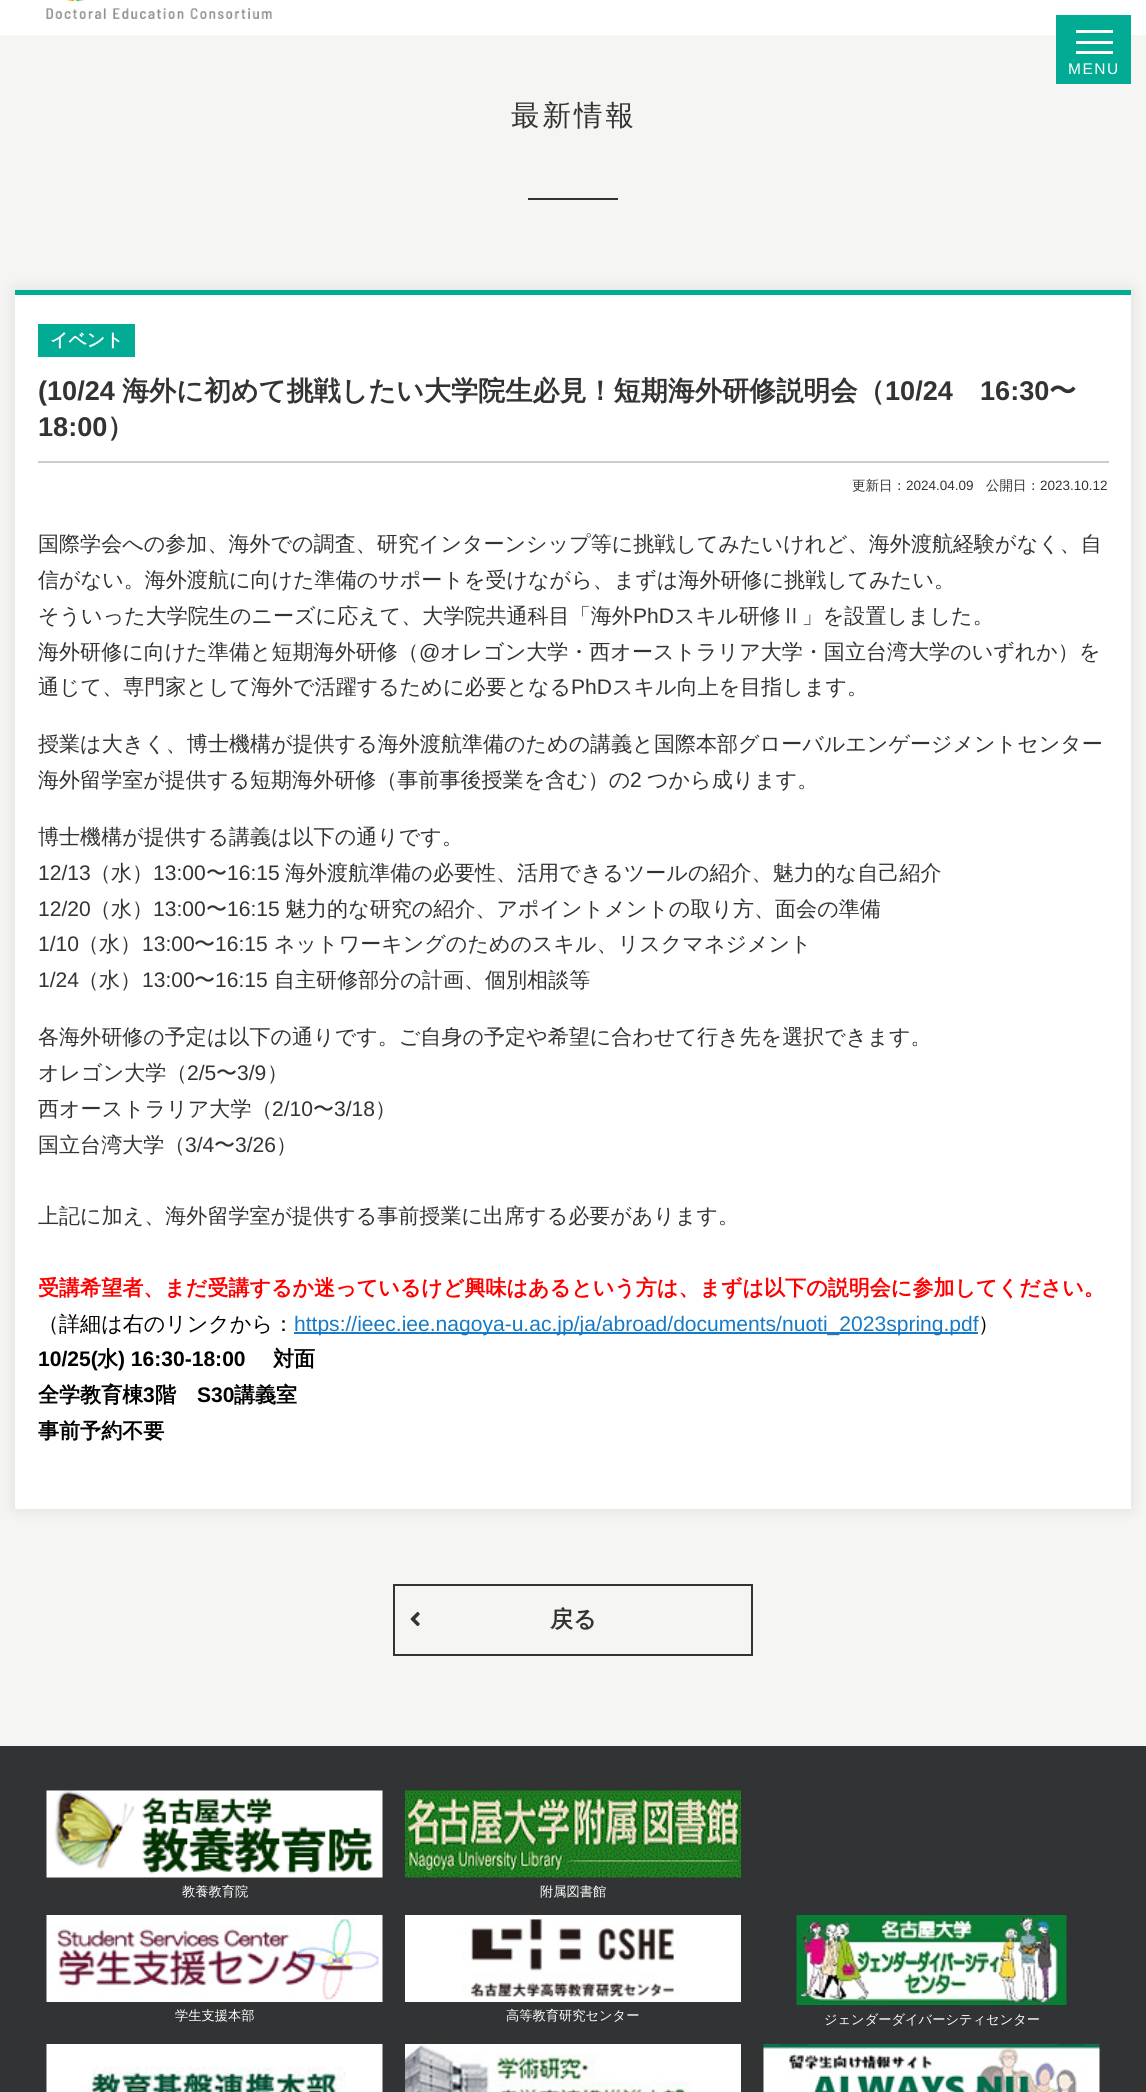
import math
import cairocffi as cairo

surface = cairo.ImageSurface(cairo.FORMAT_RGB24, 1146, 2092)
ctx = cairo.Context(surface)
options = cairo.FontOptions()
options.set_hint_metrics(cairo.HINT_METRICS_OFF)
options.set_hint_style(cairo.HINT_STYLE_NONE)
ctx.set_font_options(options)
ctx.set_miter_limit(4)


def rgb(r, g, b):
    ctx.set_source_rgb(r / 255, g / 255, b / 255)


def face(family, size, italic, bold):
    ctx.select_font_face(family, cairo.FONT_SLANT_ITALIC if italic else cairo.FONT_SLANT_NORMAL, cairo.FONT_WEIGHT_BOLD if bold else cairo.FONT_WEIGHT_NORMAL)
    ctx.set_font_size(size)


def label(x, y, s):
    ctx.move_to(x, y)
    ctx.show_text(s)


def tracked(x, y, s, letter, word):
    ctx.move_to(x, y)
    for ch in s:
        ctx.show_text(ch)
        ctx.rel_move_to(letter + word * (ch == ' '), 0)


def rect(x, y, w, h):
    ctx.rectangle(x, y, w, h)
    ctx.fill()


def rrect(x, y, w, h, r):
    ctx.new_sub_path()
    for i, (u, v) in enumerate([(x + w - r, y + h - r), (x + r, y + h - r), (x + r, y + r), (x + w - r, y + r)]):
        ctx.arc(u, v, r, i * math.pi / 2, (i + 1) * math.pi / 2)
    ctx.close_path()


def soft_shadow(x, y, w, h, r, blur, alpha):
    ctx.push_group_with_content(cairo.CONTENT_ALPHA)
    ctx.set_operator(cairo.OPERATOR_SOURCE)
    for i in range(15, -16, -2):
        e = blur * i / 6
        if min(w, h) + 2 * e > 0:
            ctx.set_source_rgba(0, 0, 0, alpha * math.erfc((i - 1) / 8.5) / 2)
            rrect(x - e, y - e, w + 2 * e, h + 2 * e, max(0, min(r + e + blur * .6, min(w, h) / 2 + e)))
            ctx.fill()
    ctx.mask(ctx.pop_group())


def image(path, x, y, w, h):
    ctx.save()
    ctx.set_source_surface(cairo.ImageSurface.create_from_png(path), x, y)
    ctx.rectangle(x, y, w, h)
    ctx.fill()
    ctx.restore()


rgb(245, 245, 243)
ctx.paint()
rgb(255, 255, 255)
rect(0, 0, 1146, 35)
image('image0.png', 46, 0, 226, 19)
rgb(1, 171, 148)
rect(1056, 15, 75, 69)
rgb(255, 255, 255)
rect(1076, 30, 37, 3)
rect(1076, 41, 37, 3)
rect(1076, 51, 37, 3)
face('Liberation Sans', 15.5, 0, 0)
tracked(1068, 74, 'MENU', 1.5, 0)
face('WenQuanYi Zen Hei Medium', 28.5, 0, 0)
rgb(51, 51, 51)
tracked(511, 125, '最新情報', 3, 0)
rect(528, 198, 90, 2)
rgb(0, 0, 0)
soft_shadow(15, 290, 1116, 1219, 0, 7.5, 0.1)
rgb(255, 255, 255)
rect(15, 295, 1116, 1214)
rgb(1, 171, 148)
rect(15, 290, 1116, 5)
rect(38, 324, 97, 33)
face('WenQuanYi Zen Hei', 18, 0, 1)
rgb(255, 255, 255)
label(50, 346, 'イベント')
face('Liberation Sans', 27.1, 0, 1)
rgb(51, 51, 51)
label(38, 400, '(10/24')
face('WenQuanYi Zen Hei', 27.1, 0, 1)
label(122, 400, '海外に初めて挑戦したい大学院生必見！短期海外研修説明会（')
face('Liberation Sans', 27.1, 0, 1)
label(885, 400, '10/24')
label(980, 400, '16:30')
face('WenQuanYi Zen Hei', 27.1, 0, 1)
label(1049, 400, '〜')
face('Liberation Sans', 27.1, 0, 1)
label(38, 436, '18:00')
face('WenQuanYi Zen Hei', 27.1, 0, 1)
label(107, 436, '）')
rgb(204, 204, 204)
rect(38, 461, 1071, 2)
face('WenQuanYi Zen Hei Medium', 13.5, 0, 0)
rgb(51, 51, 51)
label(852, 490, '更新日：')
face('Liberation Sans', 13.5, 0, 0)
label(906, 490, '2024.04.09')
face('WenQuanYi Zen Hei Medium', 13.5, 0, 0)
label(986, 490, '公開日：')
face('Liberation Sans', 13.5, 0, 0)
label(1040, 490, '2023.10.12')
face('WenQuanYi Zen Hei Medium', 21.05, 0, 0)
label(38, 551, '国際学会への参加、海外での調査、研究インターンシップ等に挑戦してみたいけれど、海外渡航経験がなく、自')
label(38, 587, '信がない。海外渡航に向けた準備のサポートを受けながら、まずは海外研修に挑戦してみたい。')
label(38, 623, 'そういった大学院生のニーズに応えて、大学院共通科目「海外')
face('Liberation Sans', 21.05, 0, 0)
label(633, 623, 'PhD')
face('WenQuanYi Zen Hei Medium', 21.05, 0, 0)
label(674, 623, 'スキル研修Ⅱ」を設置しました。')
label(38, 659, '海外研修に向けた準備と短期海外研修（')
face('Liberation Sans', 21.05, 0, 0)
label(419, 659, '@')
face('WenQuanYi Zen Hei Medium', 21.05, 0, 0)
label(440, 659, 'オレゴン大学・西オーストラリア大学・国立台湾大学のいずれか）を')
label(38, 694, '通じて、専門家として海外で活躍するために必要となる')
face('Liberation Sans', 21.05, 0, 0)
label(571, 694, 'PhD')
face('WenQuanYi Zen Hei Medium', 21.05, 0, 0)
label(612, 694, 'スキル向上を目指します。')
label(38, 751, '授業は大きく、博士機構が提供する海外渡航準備のための講義と国際本部グローバルエンゲージメントセンター')
label(38, 787, '海外留学室が提供する短期海外研修（事前事後授業を含む）の')
face('Liberation Sans', 21.05, 0, 0)
label(630, 787, '2')
face('WenQuanYi Zen Hei Medium', 21.05, 0, 0)
label(647, 787, 'つから成ります。')
label(38, 844, '博士機構が提供する講義は以下の通りです。')
face('Liberation Sans', 21.05, 0, 0)
label(38, 880, '12/13')
face('WenQuanYi Zen Hei Medium', 21.05, 0, 0)
label(90, 880, '（水）')
face('Liberation Sans', 21.05, 0, 0)
label(153, 880, '13:00')
face('WenQuanYi Zen Hei Medium', 21.05, 0, 0)
label(206, 880, '〜')
face('Liberation Sans', 21.05, 0, 0)
label(227, 880, '16:15')
face('WenQuanYi Zen Hei Medium', 21.05, 0, 0)
label(285, 880, '海外渡航準備の必要性、活用できるツールの紹介、魅力的な自己紹介')
face('Liberation Sans', 21.05, 0, 0)
label(38, 916, '12/20')
face('WenQuanYi Zen Hei Medium', 21.05, 0, 0)
label(90, 916, '（水）')
face('Liberation Sans', 21.05, 0, 0)
label(153, 916, '13:00')
face('WenQuanYi Zen Hei Medium', 21.05, 0, 0)
label(206, 916, '〜')
face('Liberation Sans', 21.05, 0, 0)
label(227, 916, '16:15')
face('WenQuanYi Zen Hei Medium', 21.05, 0, 0)
label(285, 916, '魅力的な研究の紹介、アポイントメントの取り方、面会の準備')
face('Liberation Sans', 21.05, 0, 0)
label(38, 951, '1/10')
face('WenQuanYi Zen Hei Medium', 21.05, 0, 0)
label(78, 951, '（水）')
face('Liberation Sans', 21.05, 0, 0)
label(142, 951, '13:00')
face('WenQuanYi Zen Hei Medium', 21.05, 0, 0)
label(194, 951, '〜')
face('Liberation Sans', 21.05, 0, 0)
label(215, 951, '16:15')
face('WenQuanYi Zen Hei Medium', 21.05, 0, 0)
label(274, 951, 'ネットワーキングのためのスキル、リスクマネジメント')
face('Liberation Sans', 21.05, 0, 0)
label(38, 987, '1/24')
face('WenQuanYi Zen Hei Medium', 21.05, 0, 0)
label(78, 987, '（水）')
face('Liberation Sans', 21.05, 0, 0)
label(142, 987, '13:00')
face('WenQuanYi Zen Hei Medium', 21.05, 0, 0)
label(194, 987, '〜')
face('Liberation Sans', 21.05, 0, 0)
label(215, 987, '16:15')
face('WenQuanYi Zen Hei Medium', 21.05, 0, 0)
label(274, 987, '自主研修部分の計画、個別相談等')
label(38, 1044, '各海外研修の予定は以下の通りです。ご自身の予定や希望に合わせて行き先を選択できます。')
label(38, 1080, 'オレゴン大学（')
face('Liberation Sans', 21.05, 0, 0)
label(187, 1080, '2/5')
face('WenQuanYi Zen Hei Medium', 21.05, 0, 0)
label(216, 1080, '〜')
face('Liberation Sans', 21.05, 0, 0)
label(237, 1080, '3/9')
face('WenQuanYi Zen Hei Medium', 21.05, 0, 0)
label(267, 1080, '）')
label(38, 1116, '西オーストラリア大学（')
face('Liberation Sans', 21.05, 0, 0)
label(272, 1116, '2/10')
face('WenQuanYi Zen Hei Medium', 21.05, 0, 0)
label(313, 1116, '〜')
face('Liberation Sans', 21.05, 0, 0)
label(334, 1116, '3/18')
face('WenQuanYi Zen Hei Medium', 21.05, 0, 0)
label(375, 1116, '）')
label(38, 1152, '国立台湾大学（')
face('Liberation Sans', 21.05, 0, 0)
label(185, 1152, '3/4')
face('WenQuanYi Zen Hei Medium', 21.05, 0, 0)
label(214, 1152, '〜')
face('Liberation Sans', 21.05, 0, 0)
label(235, 1152, '3/26')
face('WenQuanYi Zen Hei Medium', 21.05, 0, 0)
label(276, 1152, '）')
label(38, 1223, '上記に加え、海外留学室が提供する事前授業に出席する必要があります。')
face('WenQuanYi Zen Hei', 21.05, 0, 1)
rgb(255, 0, 0)
label(38, 1295, '受講希望者、まだ受講するか迷っているけど興味はあるという方は、まずは以下の説明会に参加してください。')
face('WenQuanYi Zen Hei Medium', 21.05, 0, 0)
rgb(0, 0, 0)
label(38, 1331, '（詳細は右のリンクから：')
rgb(22, 122, 198)
rect(294, 1332, 684, 2)
face('Liberation Sans', 21.05, 0, 0)
label(294, 1331, 'https://ieec.iee.nagoya-u.ac.jp/ja/abroad/documents/nuoti_2023spring.pdf')
face('WenQuanYi Zen Hei Medium', 21.05, 0, 0)
rgb(0, 0, 0)
label(978, 1331, '）')
face('Liberation Sans', 21.05, 0, 1)
label(38, 1366, '10/25(')
face('WenQuanYi Zen Hei', 21.05, 0, 1)
label(97, 1366, '水')
face('Liberation Sans', 21.05, 0, 1)
label(118, 1366, ') 16:30-18:00')
face('WenQuanYi Zen Hei', 21.05, 0, 1)
label(273, 1366, '対面')
label(38, 1402, '全学教育棟')
face('Liberation Sans', 21.05, 0, 1)
label(143, 1402, '3')
face('WenQuanYi Zen Hei', 21.05, 0, 1)
label(155, 1402, '階')
face('Liberation Sans', 21.05, 0, 1)
label(197, 1402, 'S30')
face('WenQuanYi Zen Hei', 21.05, 0, 1)
label(234, 1402, '講義室')
label(38, 1438, '事前予約不要')
ctx.rectangle(394, 1585, 358, 70)
rgb(51, 51, 51)
ctx.stroke()
image('image1.png', 410, 1612, 10, 15)
face('WenQuanYi Zen Hei', 23, 0, 1)
label(550, 1627, '戻る')
rgb(50, 51, 52)
rect(0, 1746, 1146, 346)
image('image2.png', 46, 1790, 337, 88)
face('WenQuanYi Zen Hei Medium', 13.25, 0, 0)
rgb(255, 255, 255)
label(182, 1896, '教養教育院')
image('image3.png', 405, 1790, 336, 88)
label(540, 1896, '附属図書館')
image('image4.png', 46, 1915, 337, 87)
label(175, 2020, '学生支援本部')
image('image5.png', 405, 1915, 336, 87)
label(506, 2020, '高等教育研究センター')
image('image6.png', 796, 1915, 271, 90)
label(824, 2024, 'ジェンダーダイバーシティセンター')
image('image7.png', 46, 2044, 337, 48)
image('image8.png', 405, 2044, 336, 48)
image('image9.png', 763, 2044, 337, 48)
surface.write_to_png('render.png')
